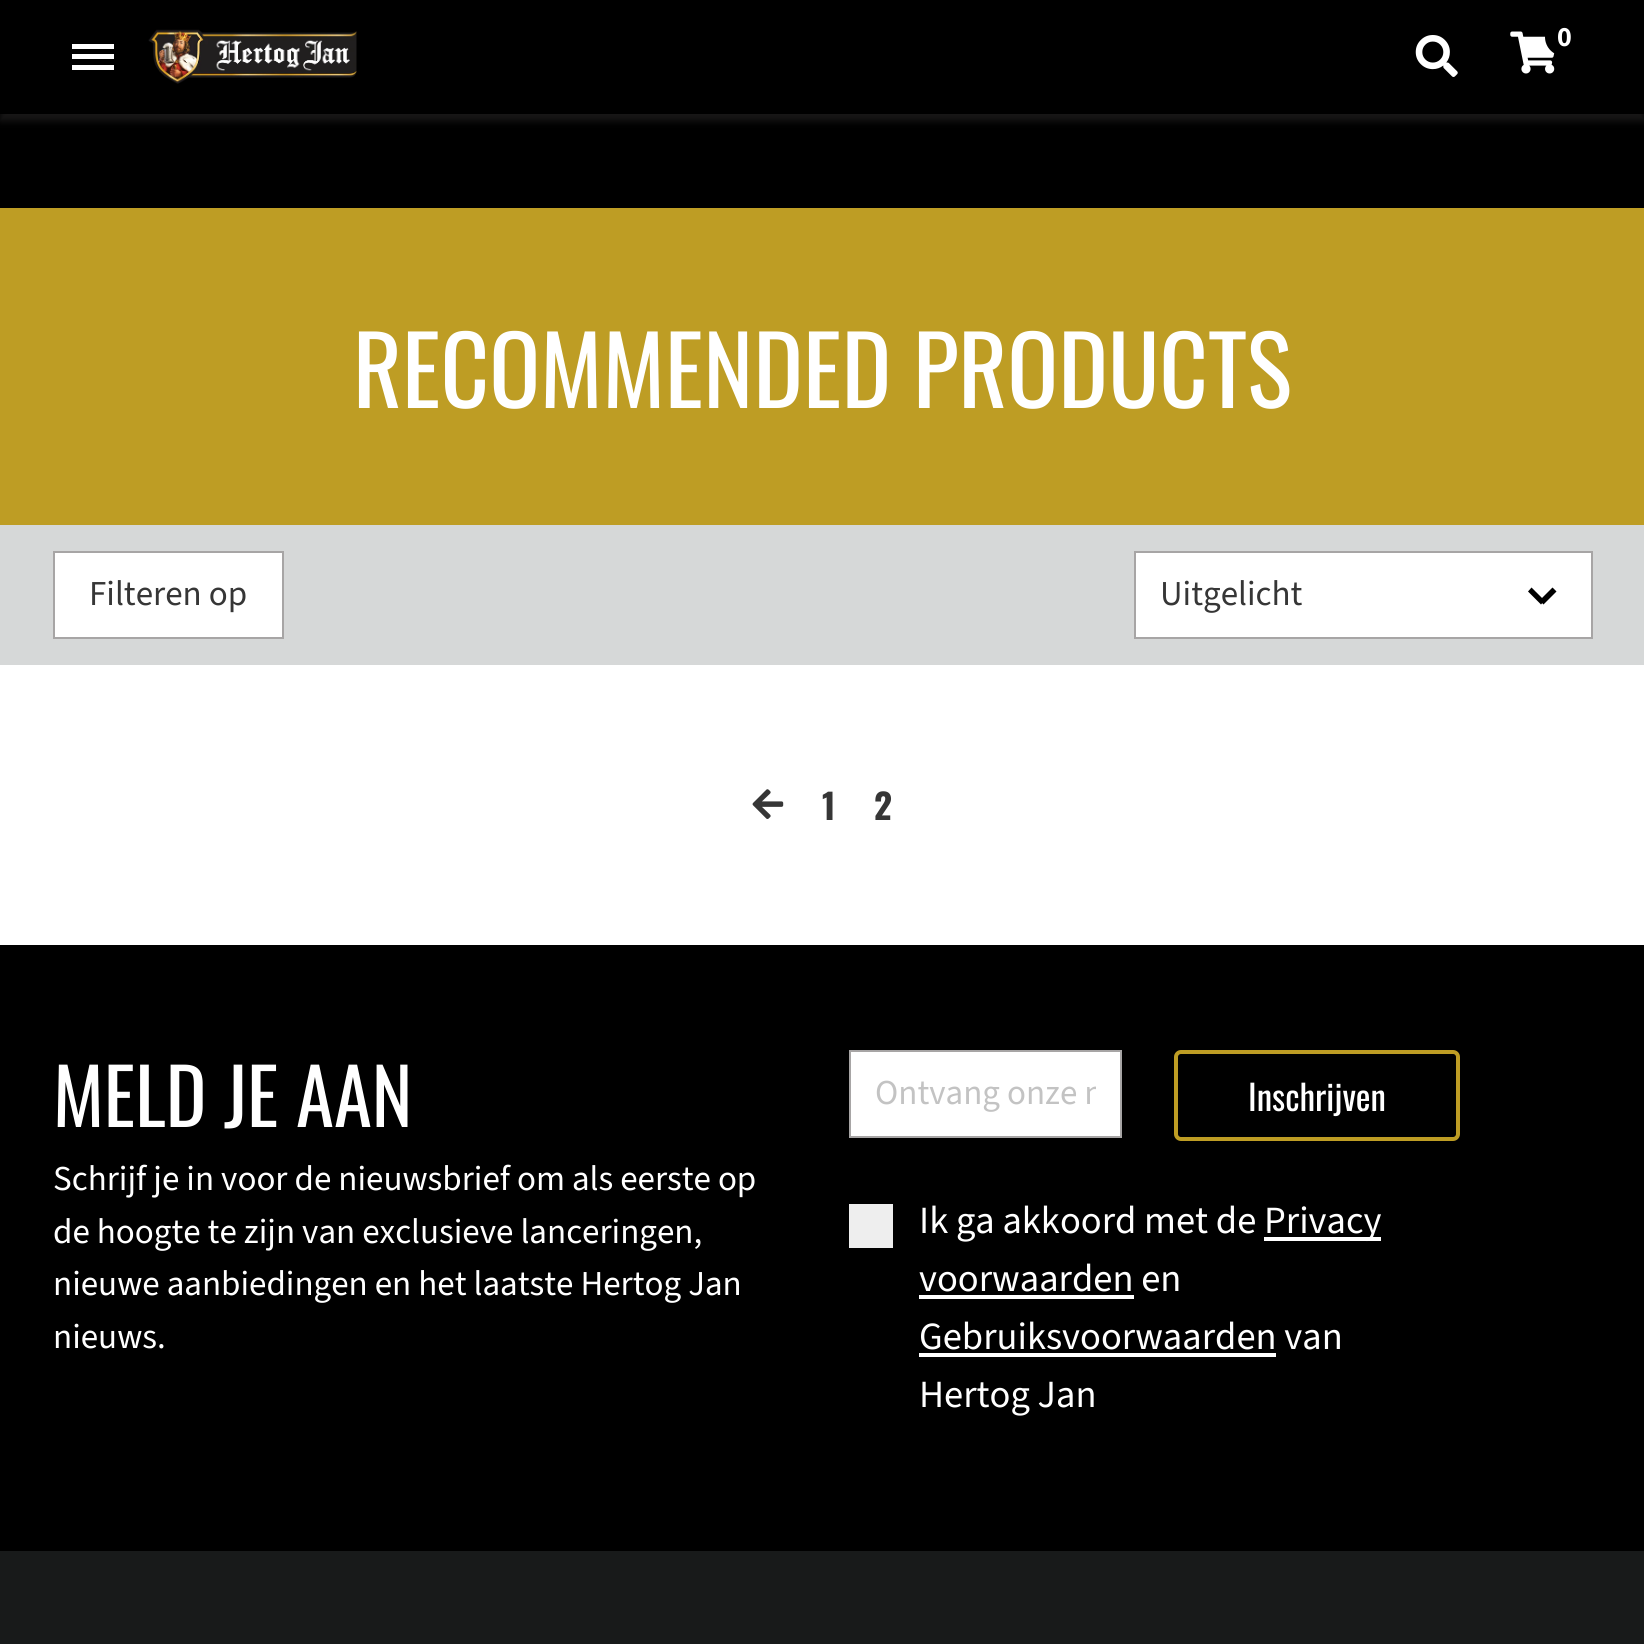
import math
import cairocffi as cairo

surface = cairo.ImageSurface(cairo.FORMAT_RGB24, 1644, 1644)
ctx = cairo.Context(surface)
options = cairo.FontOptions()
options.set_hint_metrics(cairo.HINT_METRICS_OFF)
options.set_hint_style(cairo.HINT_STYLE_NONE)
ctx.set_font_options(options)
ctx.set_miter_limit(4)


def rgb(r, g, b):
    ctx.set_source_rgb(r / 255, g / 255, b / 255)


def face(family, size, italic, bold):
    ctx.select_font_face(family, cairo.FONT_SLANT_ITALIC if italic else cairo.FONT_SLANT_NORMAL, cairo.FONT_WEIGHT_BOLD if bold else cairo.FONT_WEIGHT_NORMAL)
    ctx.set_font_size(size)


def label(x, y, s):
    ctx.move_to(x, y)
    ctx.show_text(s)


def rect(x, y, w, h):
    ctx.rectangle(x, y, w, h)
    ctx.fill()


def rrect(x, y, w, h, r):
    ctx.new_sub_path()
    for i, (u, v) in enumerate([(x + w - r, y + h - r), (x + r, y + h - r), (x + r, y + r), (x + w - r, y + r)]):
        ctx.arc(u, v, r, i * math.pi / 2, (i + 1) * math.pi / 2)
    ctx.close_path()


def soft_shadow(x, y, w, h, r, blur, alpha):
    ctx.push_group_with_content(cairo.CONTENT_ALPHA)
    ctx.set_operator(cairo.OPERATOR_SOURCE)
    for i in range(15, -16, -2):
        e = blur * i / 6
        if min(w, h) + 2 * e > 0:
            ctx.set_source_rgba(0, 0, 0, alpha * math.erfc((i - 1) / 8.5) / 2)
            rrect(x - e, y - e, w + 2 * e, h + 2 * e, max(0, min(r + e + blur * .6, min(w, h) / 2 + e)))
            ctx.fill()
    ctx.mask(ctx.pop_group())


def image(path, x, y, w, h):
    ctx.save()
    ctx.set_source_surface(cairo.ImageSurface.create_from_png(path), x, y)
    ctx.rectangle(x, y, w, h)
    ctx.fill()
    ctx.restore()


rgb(255, 255, 255)
ctx.paint()
rgb(0, 0, 0)
rect(0, 114, 1644, 94)
rgb(79, 75, 75)
soft_shadow(0, 7, 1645, 114, 0, 3.5, 0.3)
rgb(0, 0, 0)
rect(0, 0, 1644, 114)
rgb(255, 255, 255)
rect(72, 44, 42, 5)
rect(72, 54, 42, 5)
rect(72, 65, 42, 5)
image('image0.png', 148, 29, 209, 55)
image('image1.png', 1415, 35, 43, 42)
image('image2.png', 1510, 31, 45, 43)
rgb(0, 0, 0)
rrect(1545, 18, 39, 38, 19)
ctx.fill()
face('Source Sans Pro', 28, 0, 1)
rgb(255, 255, 255)
label(1557, 46, '0')
rgb(190, 157, 36)
rect(0, 208, 1644, 317)
face('Oswald', 94.5, 0, 0)
rgb(255, 255, 255)
label(353, 408, 'RECOMMENDED PRODUCTS')
rgb(214, 216, 216)
rect(0, 525, 1644, 140)
rgb(255, 255, 255)
ctx.rectangle(54, 552, 229, 86)
ctx.fill_preserve()
rgb(167, 165, 165)
ctx.stroke()
face('Source Sans Pro', 35, 0, 0)
rgb(54, 54, 54)
label(89, 605, 'Filteren op')
rgb(255, 255, 255)
ctx.rectangle(1135, 552, 457, 86)
ctx.fill_preserve()
rgb(167, 165, 165)
ctx.stroke()
rgb(54, 54, 54)
label(1160, 605, 'Uitgelicht')
rgb(0, 0, 0)
ctx.new_path()
ctx.move_to(1539.5, 600.5)
ctx.line_to(1552.5, 587.5)
ctx.line_to(1556.5, 591.5)
ctx.line_to(1543.5, 604.5)
ctx.close_path()
ctx.fill()
ctx.new_path()
ctx.move_to(1528, 591.5)
ctx.line_to(1531.5, 587.5)
ctx.line_to(1544.5, 600.5)
ctx.line_to(1541, 604.5)
ctx.close_path()
ctx.fill()
image('image3.png', 752, 789, 32, 30)
face('Oswald', 35, 0, 1)
rgb(54, 54, 54)
label(822, 820, '1')
label(874, 820, '2')
rgb(0, 0, 0)
rect(0, 945, 1644, 606)
face('Oswald', 77, 0, 0)
rgb(255, 255, 255)
label(53, 1127, 'MELD JE AAN')
face('Source Sans Pro', 35, 0, 0)
label(53, 1190, 'Schrijf je in voor de nieuwsbrief om als eerste op')
label(53, 1243, 'de hoogte te zijn van exclusieve lanceringen,')
label(53, 1295, 'nieuwe aanbiedingen en het laatste Hertog Jan')
label(53, 1348, 'nieuws.')
ctx.rectangle(850, 1051, 271, 86)
ctx.fill_preserve()
rgb(167, 165, 165)
ctx.stroke()
ctx.save()
ctx.rectangle(875, 1069, 221, 49)
ctx.clip()
rgb(195, 195, 195)
label(875, 1104, 'Ontvang onze n')
ctx.restore()
rrect(1176, 1052, 282, 87, 5)
rgb(190, 157, 36)
ctx.set_line_width(4)
ctx.stroke()
face('Oswald', 35, 0, 0)
rgb(255, 255, 255)
label(1248, 1111, 'Inschrijven')
rgb(238, 238, 238)
rect(849, 1204, 44, 44)
face('Source Sans Pro', 38.5, 0, 0)
rgb(255, 255, 255)
label(919, 1233, 'Ik ga akkoord met de')
rect(1264, 1237, 117, 4)
label(1264, 1233, 'Privacy')
label(919, 1291, 'voorwaarden en')
rect(919, 1295, 215, 4)
label(919, 1349, 'Gebruiksvoorwaarden van')
rect(919, 1353, 357, 4)
label(919, 1407, 'Hertog Jan')
rgb(24, 26, 26)
rect(0, 1551, 1644, 93)
surface.write_to_png('render.png')
